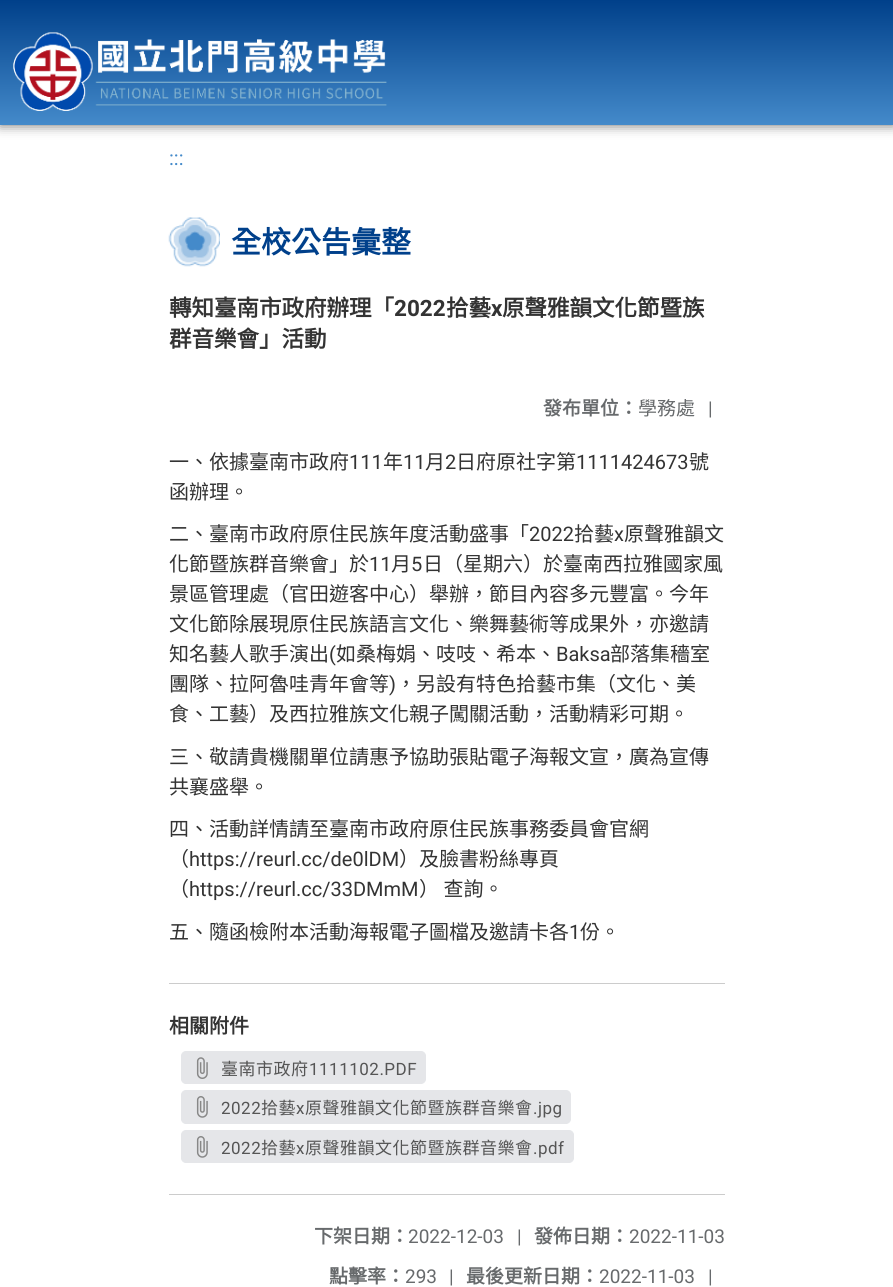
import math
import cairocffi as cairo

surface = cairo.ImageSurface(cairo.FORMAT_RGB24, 893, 1287)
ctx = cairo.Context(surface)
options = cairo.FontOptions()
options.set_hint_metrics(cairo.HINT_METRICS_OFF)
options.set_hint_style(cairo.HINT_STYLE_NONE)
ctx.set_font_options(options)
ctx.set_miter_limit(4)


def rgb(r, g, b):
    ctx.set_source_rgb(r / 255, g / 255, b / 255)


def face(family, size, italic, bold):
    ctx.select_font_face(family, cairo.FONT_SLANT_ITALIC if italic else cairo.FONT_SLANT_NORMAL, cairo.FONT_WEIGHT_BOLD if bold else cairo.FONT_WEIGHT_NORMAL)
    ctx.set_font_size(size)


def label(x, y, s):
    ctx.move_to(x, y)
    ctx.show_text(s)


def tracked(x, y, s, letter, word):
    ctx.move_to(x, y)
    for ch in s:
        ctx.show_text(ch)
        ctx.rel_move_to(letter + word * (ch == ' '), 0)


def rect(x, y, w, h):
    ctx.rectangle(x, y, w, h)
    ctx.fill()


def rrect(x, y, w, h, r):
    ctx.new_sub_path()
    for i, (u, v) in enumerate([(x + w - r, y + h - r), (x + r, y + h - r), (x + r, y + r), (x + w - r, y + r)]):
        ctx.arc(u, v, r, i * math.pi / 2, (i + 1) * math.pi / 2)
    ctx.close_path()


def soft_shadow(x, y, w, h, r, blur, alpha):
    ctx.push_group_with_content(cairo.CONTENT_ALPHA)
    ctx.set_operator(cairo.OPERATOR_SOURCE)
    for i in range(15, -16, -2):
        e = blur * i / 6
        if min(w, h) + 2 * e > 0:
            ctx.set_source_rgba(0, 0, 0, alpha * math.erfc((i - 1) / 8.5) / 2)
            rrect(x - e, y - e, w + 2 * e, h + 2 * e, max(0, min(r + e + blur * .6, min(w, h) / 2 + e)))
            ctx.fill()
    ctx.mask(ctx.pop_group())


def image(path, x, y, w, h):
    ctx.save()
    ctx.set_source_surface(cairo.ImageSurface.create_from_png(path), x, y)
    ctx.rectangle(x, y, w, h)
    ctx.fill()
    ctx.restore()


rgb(255, 255, 255)
ctx.paint()
rgb(109, 109, 109)
soft_shadow(0, 0, 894, 125, 0, 6, 1)
gradient = cairo.LinearGradient(447, 0, 447, 125)
gradient.add_color_stop_rgba(0, 0, 0.251, 0.541, 1)
gradient.add_color_stop_rgba(1, 0.267, 0.541, 0.792, 1)
ctx.set_source(gradient)
rect(0, 0, 893, 125)
image('image0.png', 13, 32, 374, 79)
face('Roboto', 20, 0, 0)
rgb(68, 138, 202)
label(169, 165, ':::')
image('image1.png', 168, 217, 52, 50)
face('Noto Sans CJK TC', 30, 0, 1)
rgb(0, 64, 139)
label(231, 253, '全校公告彙整')
face('Noto Sans CJK TC', 22.5, 0, 1)
rgb(51, 51, 51)
label(169, 316, '轉知臺南市政府辦理「')
face('Roboto', 22.5, 0, 1)
label(394, 316, '2022')
face('Noto Sans CJK TC', 22.5, 0, 1)
label(446, 316, '拾藝')
face('Roboto', 22.5, 0, 1)
label(491, 316, 'x')
face('Noto Sans CJK TC', 22.5, 0, 1)
label(502, 316, '原聲雅韻文化節暨族')
label(169, 347, '群音樂會」活動')
face('Noto Sans CJK TC', 19, 0, 1)
rgb(103, 106, 108)
label(543, 415, '發布單位：')
face('Noto Sans CJK TC', 19, 0, 0)
label(638, 415, '學務處')
face('Roboto', 19, 0, 0)
label(708, 415, '|')
face('Noto Sans CJK TC', 20, 0, 0)
rgb(51, 51, 51)
label(169, 469, '一、依據臺南市政府')
face('Roboto', 20, 0, 0)
label(349, 469, '111')
face('Noto Sans CJK TC', 20, 0, 0)
label(383, 469, '年')
face('Roboto', 20, 0, 0)
label(403, 469, '11')
face('Noto Sans CJK TC', 20, 0, 0)
label(425, 469, '月')
face('Roboto', 20, 0, 0)
label(445, 469, '2')
face('Noto Sans CJK TC', 20, 0, 0)
label(456, 469, '日府原社字第')
face('Roboto', 20, 0, 0)
label(576, 469, '1111424673')
face('Noto Sans CJK TC', 20, 0, 0)
label(689, 469, '號')
label(169, 499, '函辦理。')
label(169, 541, '二、臺南市政府原住民族年度活動盛事「')
face('Roboto', 20, 0, 0)
label(529, 541, '2022')
face('Noto Sans CJK TC', 20, 0, 0)
label(574, 541, '拾藝')
face('Roboto', 20, 0, 0)
label(614, 541, 'x')
face('Noto Sans CJK TC', 20, 0, 0)
label(624, 541, '原聲雅韻文')
label(169, 571, '化節暨族群音樂會」於')
face('Roboto', 20, 0, 0)
label(369, 571, '11')
face('Noto Sans CJK TC', 20, 0, 0)
label(391, 571, '月')
face('Roboto', 20, 0, 0)
label(411, 571, '5')
face('Noto Sans CJK TC', 20, 0, 0)
label(423, 571, '日（星期六）於臺南西拉雅國家風')
label(169, 601, '景區管理處（官田遊客中心）舉辦，節目內容多元豐富。今年')
label(169, 631, '文化節除展現原住民族語言文化、樂舞藝術等成果外，亦邀請')
label(169, 661, '知名藝人歌手演出')
face('Roboto', 20, 0, 0)
label(329, 661, '(')
face('Noto Sans CJK TC', 20, 0, 0)
label(336, 661, '如桑梅娟、吱吱、希本、')
face('Roboto', 20, 0, 0)
label(556, 661, 'Baksa')
face('Noto Sans CJK TC', 20, 0, 0)
label(610, 661, '部落集穡室')
label(169, 691, '團隊、拉阿魯哇青年會等')
face('Roboto', 20, 0, 0)
label(389, 691, ')')
face('Noto Sans CJK TC', 20, 0, 0)
label(396, 691, '，另設有特色拾藝市集（文化、美')
label(169, 721, '食、工藝）及西拉雅族文化親子闖關活動，活動精彩可期。')
label(169, 764, '三、敬請貴機關單位請惠予協助張貼電子海報文宣，廣為宣傳')
label(169, 794, '共襄盛舉。')
label(169, 836, '四、活動詳情請至臺南市政府原住民族事務委員會官網')
label(169, 866, '（')
face('Roboto', 20, 0, 0)
label(189, 866, 'https://reurl.cc/de0lDM')
face('Noto Sans CJK TC', 20, 0, 0)
label(399, 866, '）及臉書粉絲專頁')
label(169, 896, '（')
face('Roboto', 20, 0, 0)
label(189, 896, 'https://reurl.cc/33DMmM')
face('Noto Sans CJK TC', 20, 0, 0)
label(419, 896, '） 查詢。')
label(169, 939, '五、隨函檢附本活動海報電子圖檔及邀請卡各')
face('Roboto', 20, 0, 0)
label(569, 939, '1')
face('Noto Sans CJK TC', 20, 0, 0)
label(580, 939, '份。')
rgb(204, 204, 204)
rect(169, 983, 556, 1)
face('Noto Sans CJK TC', 20, 0, 1)
rgb(51, 51, 51)
label(169, 1033, '相關附件')
rgb(229, 230, 233)
rrect(181.5, 1051.5, 244, 32, 4.5)
ctx.fill_preserve()
ctx.set_line_width(1)
ctx.stroke()
image('image2.png', 196, 1057, 12, 22)
face('Noto Sans CJK TC', 17, 0, 0)
rgb(85, 85, 85)
tracked(221, 1075, '臺南市政府', 0.5, 0)
face('Roboto', 17, 0, 0)
tracked(309, 1075, '1111102.PDF', 0.5, 0)
rgb(229, 230, 233)
rrect(181.5, 1090.5, 389, 33, 4.5)
ctx.fill_preserve()
ctx.stroke()
image('image3.png', 196, 1096, 12, 22)
rgb(85, 85, 85)
tracked(221, 1114, '2022', 0.5, 0)
face('Noto Sans CJK TC', 17, 0, 0)
tracked(261, 1114, '拾藝', 0.5, 0)
face('Roboto', 17, 0, 0)
tracked(296, 1114, 'x', 0.5, 0)
face('Noto Sans CJK TC', 17, 0, 0)
tracked(305, 1114, '原聲雅韻文化節暨族群音樂會', 0.5, 0)
face('Roboto', 17, 0, 0)
tracked(533, 1114, '.jpg', 0.5, 0)
rgb(229, 230, 233)
rrect(181.5, 1130.5, 392, 32, 4.5)
ctx.fill_preserve()
ctx.stroke()
image('image3.png', 196, 1136, 12, 22)
rgb(85, 85, 85)
tracked(221, 1154, '2022', 0.5, 0)
face('Noto Sans CJK TC', 17, 0, 0)
tracked(261, 1154, '拾藝', 0.5, 0)
face('Roboto', 17, 0, 0)
tracked(296, 1154, 'x', 0.5, 0)
face('Noto Sans CJK TC', 17, 0, 0)
tracked(305, 1154, '原聲雅韻文化節暨族群音樂會', 0.5, 0)
face('Roboto', 17, 0, 0)
tracked(533, 1154, '.pdf', 0.5, 0)
rgb(204, 204, 204)
rect(169, 1194, 556, 1)
face('Noto Sans CJK TC', 19, 0, 1)
rgb(103, 106, 108)
label(314, 1243, '下架日期：')
face('Roboto', 19, 0, 0)
label(408, 1243, '2022-12-03')
label(517, 1243, '|')
face('Noto Sans CJK TC', 19, 0, 1)
label(534, 1243, '發佈日期：')
face('Roboto', 19, 0, 0)
label(629, 1243, '2022-11-03')
face('Noto Sans CJK TC', 19, 0, 1)
label(329, 1283, '點擊率：')
face('Roboto', 19, 0, 0)
label(405, 1283, '293')
label(449, 1283, '|')
face('Noto Sans CJK TC', 19, 0, 1)
label(466, 1283, '最後更新日期：')
face('Roboto', 19, 0, 0)
label(599, 1283, '2022-11-03')
label(708, 1283, '|')
surface.write_to_png('render.png')
